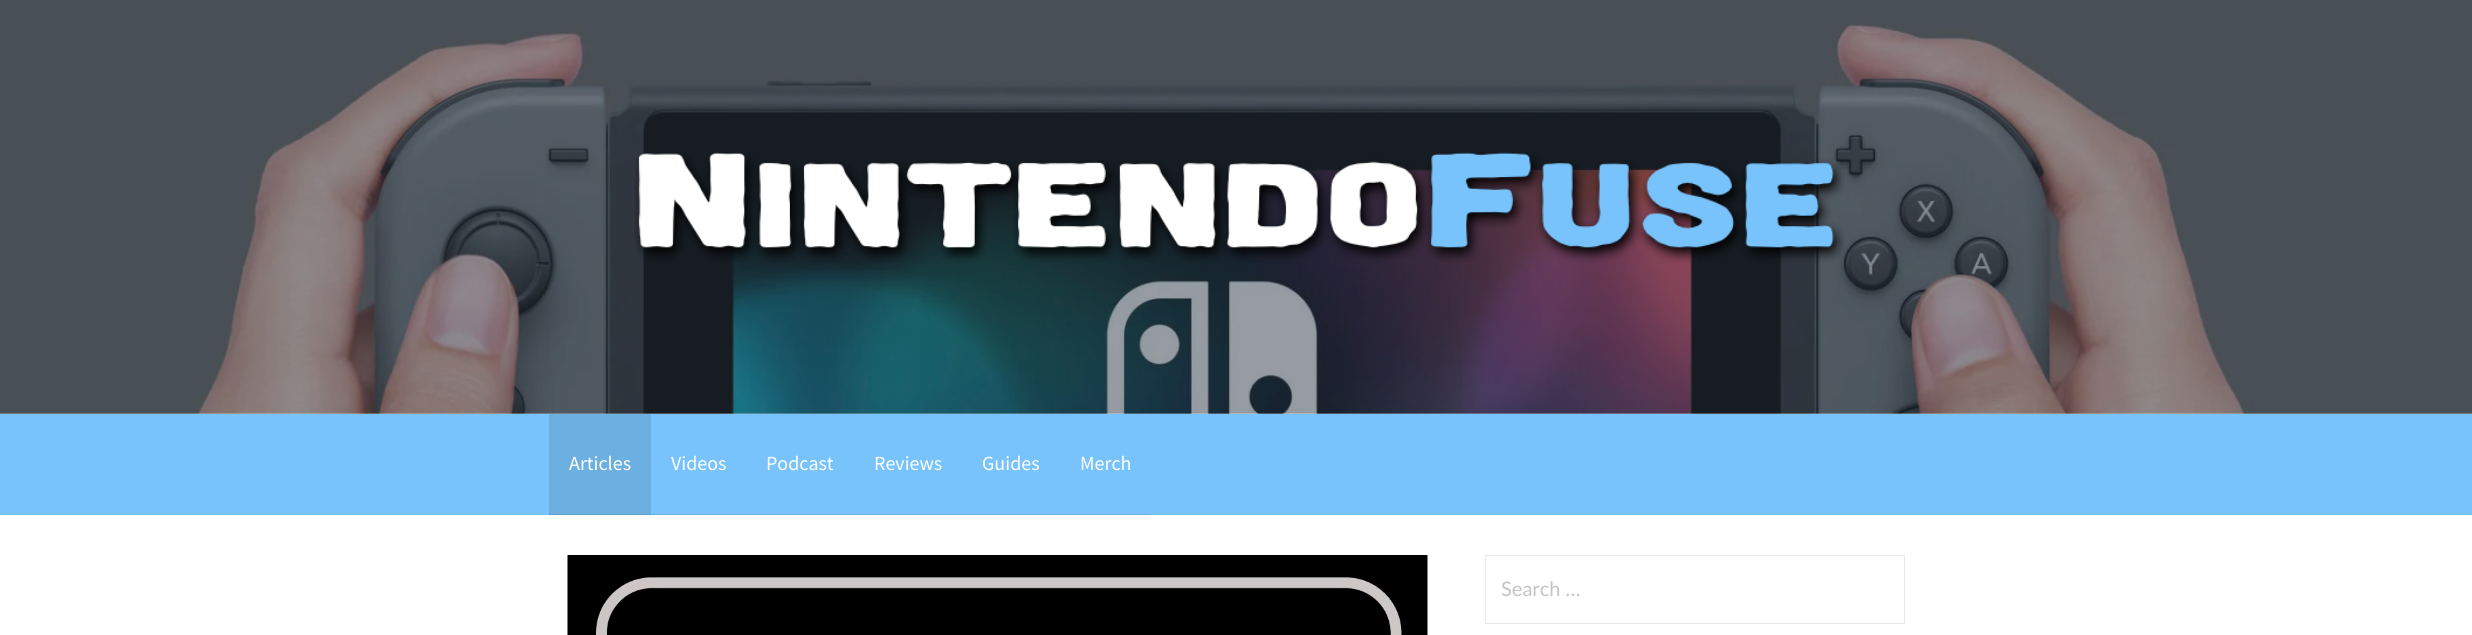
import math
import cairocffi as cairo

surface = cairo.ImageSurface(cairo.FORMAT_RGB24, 2472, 635)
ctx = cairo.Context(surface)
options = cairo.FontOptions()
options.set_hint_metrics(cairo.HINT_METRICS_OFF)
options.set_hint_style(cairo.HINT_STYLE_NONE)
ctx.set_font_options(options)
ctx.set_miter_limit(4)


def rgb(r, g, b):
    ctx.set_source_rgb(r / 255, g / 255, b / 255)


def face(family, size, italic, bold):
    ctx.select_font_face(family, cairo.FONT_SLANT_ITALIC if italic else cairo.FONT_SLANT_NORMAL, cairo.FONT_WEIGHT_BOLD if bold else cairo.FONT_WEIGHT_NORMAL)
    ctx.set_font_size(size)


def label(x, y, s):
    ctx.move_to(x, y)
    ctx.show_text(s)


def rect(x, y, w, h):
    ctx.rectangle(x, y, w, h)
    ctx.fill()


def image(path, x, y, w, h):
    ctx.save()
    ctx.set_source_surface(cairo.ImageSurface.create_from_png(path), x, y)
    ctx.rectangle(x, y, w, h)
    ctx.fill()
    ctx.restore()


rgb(255, 255, 255)
ctx.paint()
image('image0.png', 0, 0, 2472, 414)
image('image1.png', 634, 152, 1211, 111)
rgb(120, 195, 251)
rect(0, 414, 2472, 101)
rgb(108, 176, 226)
rect(549, 414, 102, 100)
rgb(97, 158, 203)
rect(549, 514, 102, 1)
face('Source Sans Pro', 20, 0, 0)
rgb(255, 255, 255)
label(569, 470, 'Articles')
rgb(108, 176, 226)
rect(651, 514, 500, 1)
rgb(255, 255, 255)
label(671, 470, 'Videos')
label(766, 470, 'Podcast')
label(874, 470, 'Reviews')
label(982, 470, 'Guides')
label(1080, 470, 'Merch')
image('image2.png', 567, 555, 861, 80)
ctx.rectangle(1485.5, 555.5, 419, 68)
rgb(233, 233, 233)
ctx.set_line_width(1)
ctx.stroke()
face('Lato', 20, 0, 0)
rgb(196, 196, 196)
label(1501, 596, 'Search …')
surface.write_to_png('render.png')
